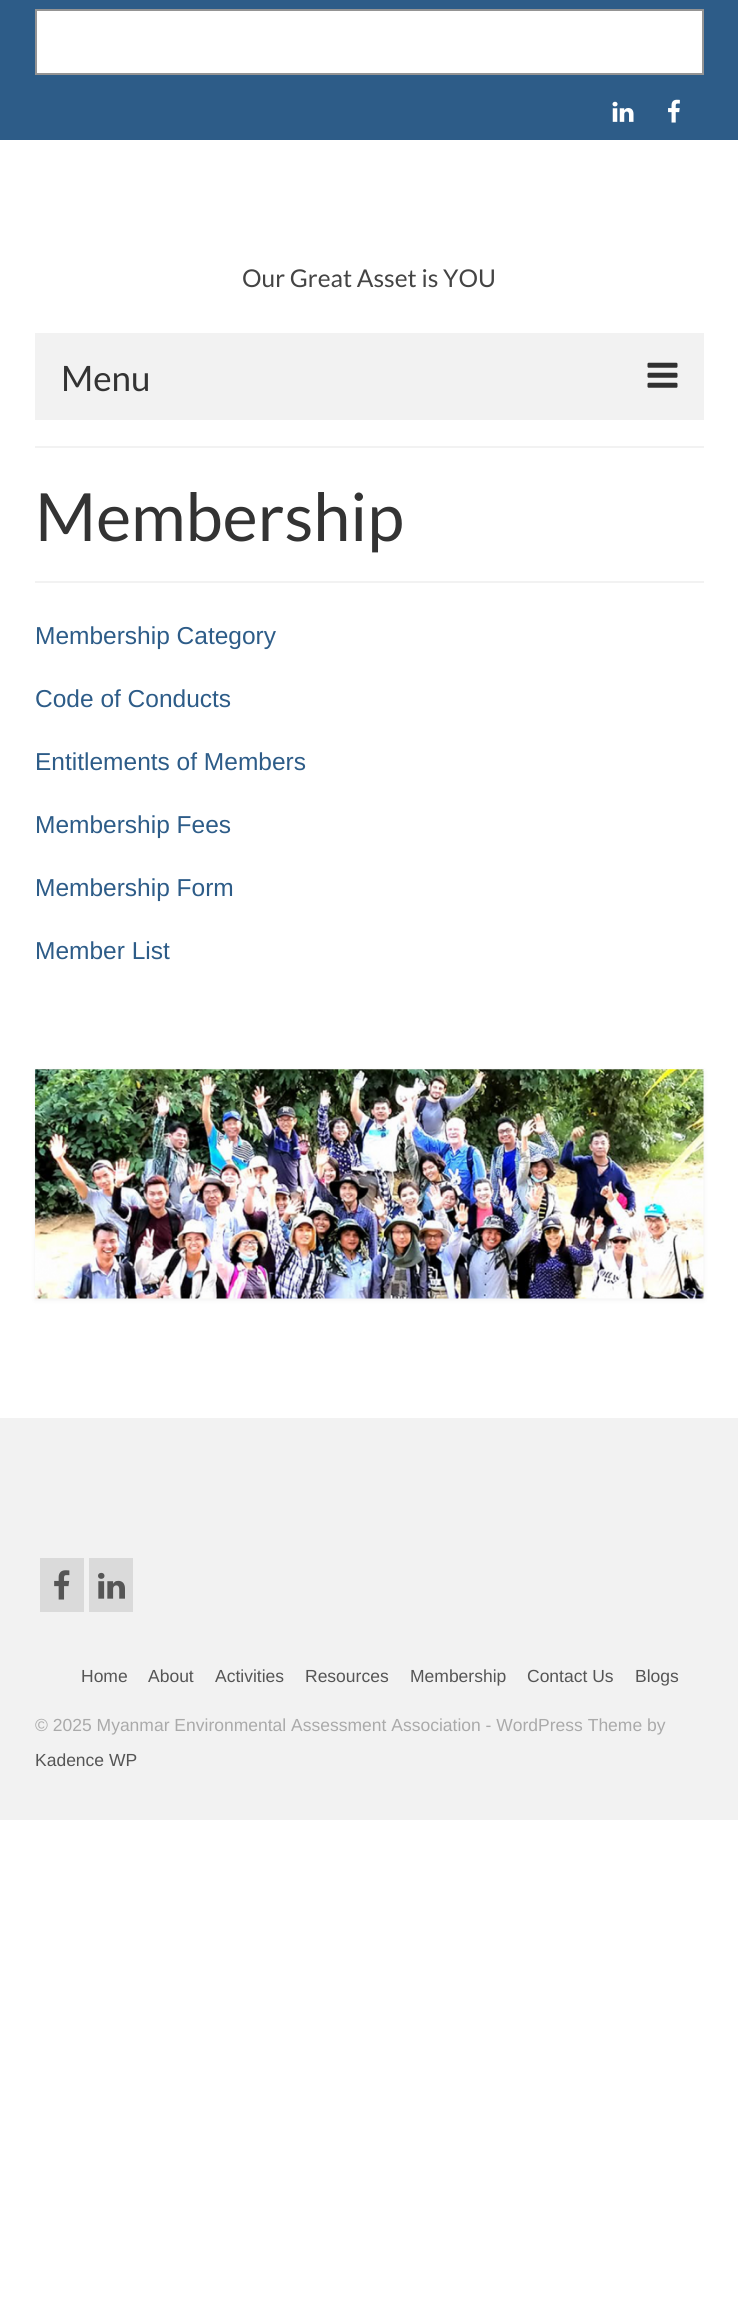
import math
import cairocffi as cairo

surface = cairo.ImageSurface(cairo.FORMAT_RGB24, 738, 2302)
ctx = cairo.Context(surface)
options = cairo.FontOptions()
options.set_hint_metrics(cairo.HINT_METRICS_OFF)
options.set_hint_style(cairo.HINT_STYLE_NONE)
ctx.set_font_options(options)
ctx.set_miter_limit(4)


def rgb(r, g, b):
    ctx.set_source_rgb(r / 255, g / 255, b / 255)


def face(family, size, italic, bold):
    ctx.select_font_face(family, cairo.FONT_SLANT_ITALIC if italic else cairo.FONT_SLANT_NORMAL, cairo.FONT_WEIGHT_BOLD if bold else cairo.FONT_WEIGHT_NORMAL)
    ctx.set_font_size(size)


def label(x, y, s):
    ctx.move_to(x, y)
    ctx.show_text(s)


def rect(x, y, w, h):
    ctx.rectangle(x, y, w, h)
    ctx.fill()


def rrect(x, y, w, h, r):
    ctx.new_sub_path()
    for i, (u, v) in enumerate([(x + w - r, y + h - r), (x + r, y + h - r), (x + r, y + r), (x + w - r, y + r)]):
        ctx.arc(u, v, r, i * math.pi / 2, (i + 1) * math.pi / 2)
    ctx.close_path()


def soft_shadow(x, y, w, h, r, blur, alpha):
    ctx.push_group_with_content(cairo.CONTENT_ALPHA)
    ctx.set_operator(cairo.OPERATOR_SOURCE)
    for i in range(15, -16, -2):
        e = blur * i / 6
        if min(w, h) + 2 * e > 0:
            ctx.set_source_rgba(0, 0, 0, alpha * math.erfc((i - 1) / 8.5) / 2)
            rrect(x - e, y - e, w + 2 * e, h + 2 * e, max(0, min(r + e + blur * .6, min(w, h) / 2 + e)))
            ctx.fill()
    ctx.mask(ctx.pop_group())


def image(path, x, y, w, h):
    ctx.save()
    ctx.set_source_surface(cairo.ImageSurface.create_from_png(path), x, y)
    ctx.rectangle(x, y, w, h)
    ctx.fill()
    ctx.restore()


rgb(255, 255, 255)
ctx.paint()
rgb(45, 92, 136)
rect(0, 0, 738, 140)
rgb(255, 255, 255)
ctx.rectangle(36, 10, 667, 64)
ctx.fill_preserve()
rgb(148, 148, 148)
ctx.stroke()
image('image0.png', 612, 101, 22, 21)
image('image1.png', 668, 99, 12, 24)
face('Lato', 24.5, 0, 0)
rgb(68, 68, 68)
label(242, 287, 'Our Great Asset is YOU')
rgb(242, 242, 242)
rect(35, 333, 669, 87)
face('Lato', 35, 0, 0)
rgb(51, 51, 51)
label(61, 391, 'Menu')
image('image2.png', 647, 362, 31, 26)
rgb(242, 242, 242)
rect(35, 446, 669, 2)
rect(35, 581, 669, 2)
face('Lato', 66.5, 0, 0)
rgb(51, 51, 51)
label(35, 541, 'Membership')
face('Liberation Sans', 24.5, 0, 0)
rgb(45, 92, 136)
label(35, 644, 'Membership Category')
label(35, 707, 'Code of Conducts')
label(35, 770, 'Entitlements of Members')
label(35, 833, 'Membership Fees')
label(35, 896, 'Membership Form')
label(35, 959, 'Member List')
rgb(0, 0, 0)
soft_shadow(35, 1071, 669, 229, 0, 2.5, 0.06)
image('image3.png', 35, 1069, 669, 230)
rgb(242, 242, 242)
rect(0, 1418, 738, 402)
rgb(218, 218, 218)
rect(40, 1558, 44, 54)
image('image4.png', 54, 1570, 16, 30)
rect(89, 1558, 44, 54)
image('image5.png', 98, 1572, 27, 27)
face('Liberation Sans', 17.5, 0, 0)
rgb(85, 85, 85)
label(81, 1682, 'Home')
label(148, 1682, 'About')
label(215, 1682, 'Activities')
label(305, 1682, 'Resources')
label(410, 1682, 'Membership')
label(527, 1682, 'Contact Us')
label(635, 1682, 'Blogs')
rgb(170, 170, 170)
label(35, 1731, '© 2025 Myanmar Environmental Assessment Association - WordPress Theme by')
rgb(85, 85, 85)
label(35, 1766, 'Kadence WP')
surface.write_to_png('render.png')
